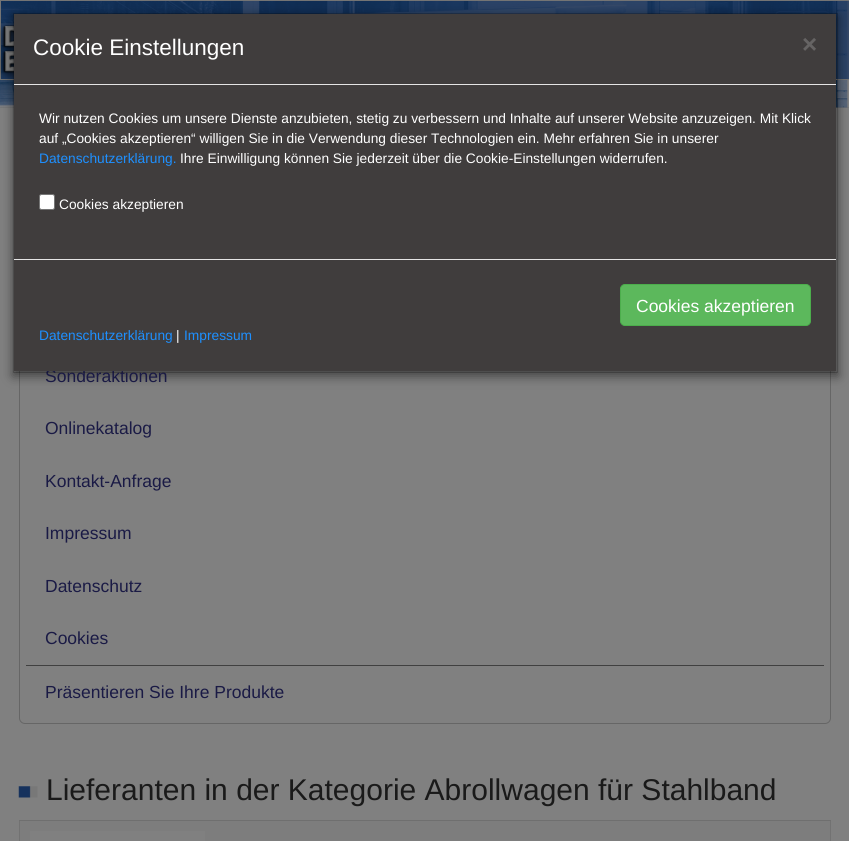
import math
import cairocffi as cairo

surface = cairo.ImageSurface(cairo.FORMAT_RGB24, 849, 841)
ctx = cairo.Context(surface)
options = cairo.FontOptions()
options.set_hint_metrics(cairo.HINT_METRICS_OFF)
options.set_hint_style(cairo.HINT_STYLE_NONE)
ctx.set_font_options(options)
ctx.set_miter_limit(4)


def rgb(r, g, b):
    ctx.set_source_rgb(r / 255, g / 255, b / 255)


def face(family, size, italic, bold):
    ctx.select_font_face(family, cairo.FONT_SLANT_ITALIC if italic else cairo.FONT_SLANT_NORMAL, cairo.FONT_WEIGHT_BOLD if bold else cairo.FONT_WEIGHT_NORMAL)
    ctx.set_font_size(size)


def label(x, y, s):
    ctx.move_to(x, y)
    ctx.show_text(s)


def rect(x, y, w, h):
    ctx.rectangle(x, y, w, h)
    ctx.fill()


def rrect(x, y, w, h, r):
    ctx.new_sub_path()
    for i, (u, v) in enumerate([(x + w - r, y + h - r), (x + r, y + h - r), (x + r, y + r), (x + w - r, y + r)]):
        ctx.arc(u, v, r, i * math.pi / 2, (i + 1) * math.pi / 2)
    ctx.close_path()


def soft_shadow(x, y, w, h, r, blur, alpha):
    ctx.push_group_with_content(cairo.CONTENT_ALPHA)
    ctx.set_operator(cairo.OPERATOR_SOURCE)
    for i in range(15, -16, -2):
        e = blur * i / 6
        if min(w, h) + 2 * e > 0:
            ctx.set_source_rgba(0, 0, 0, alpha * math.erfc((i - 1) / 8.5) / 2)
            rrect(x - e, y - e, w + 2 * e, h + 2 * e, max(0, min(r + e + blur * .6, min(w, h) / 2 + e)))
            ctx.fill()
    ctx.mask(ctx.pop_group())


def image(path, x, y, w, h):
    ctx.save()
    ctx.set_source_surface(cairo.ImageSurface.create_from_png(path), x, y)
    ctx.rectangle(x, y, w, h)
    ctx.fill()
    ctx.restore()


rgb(128, 128, 128)
ctx.paint()
rgb(115, 115, 115)
rect(0, 107, 849, 1)
image('image0.png', 0, 1, 849, 107)
ctx.set_source_rgba(0.086, 0.2, 0.365, 0.7)
ctx.rectangle(0.5, 0.5, 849, 79)
ctx.fill_preserve()
rgb(116, 116, 116)
ctx.set_line_width(1)
ctx.stroke()
image('image1.png', 0, 22, 14, 59)
rrect(775.5, 11.5, 54, 42, 4.5)
rgb(22, 51, 93)
ctx.stroke()
rrect(19.5, 133.5, 811, 590, 5.5)
rgb(102, 102, 102)
ctx.stroke()
rgb(0, 0, 0)
soft_shadow(13, 16, 825, 360, 0, 5.5, 0.5)
face('Liberation Sans', 17.5, 0, 0)
rgb(26, 26, 69)
label(45, 382, 'Sonderaktionen')
rgb(64, 61, 61)
rect(14, 14, 822, 357)
ctx.rectangle(13.5, 13.5, 824, 359)
ctx.set_source_rgba(0, 0, 0, 0.2)
ctx.stroke()
rgb(229, 229, 229)
rect(14, 84, 822, 1)
face('Liberation Sans', 22.5, 0, 0)
rgb(255, 255, 255)
label(33, 55, 'Cookie Einstellungen')
face('Liberation Sans', 26, 0, 1)
rgb(102, 100, 100)
label(802, 53, '×')
face('Liberation Sans', 13.75, 0, 0)
rgb(255, 255, 255)
label(39, 123, 'Wir nutzen Cookies um unsere Dienste anzubieten, stetig zu verbessern und Inhalte auf unserer Website anzuzeigen. Mit Klick')
label(39, 143, 'auf „Cookies akzeptieren“ willigen Sie in die Verwendung dieser Technologien ein. Mehr erfahren Sie in unserer')
rgb(30, 144, 255)
label(39, 163, 'Datenschutzerklärung.')
rgb(255, 255, 255)
label(180, 163, 'Ihre Einwilligung können Sie jederzeit über die Cookie-Einstellungen widerrufen.')
rrect(39.5, 194.5, 15, 15, 2)
ctx.fill_preserve()
rgb(118, 118, 118)
ctx.stroke()
rgb(255, 255, 255)
label(59, 209, 'Cookies akzeptieren')
rgb(229, 229, 229)
rect(14, 259, 822, 1)
rgb(92, 184, 92)
rrect(620.5, 284.5, 190, 41, 4.5)
ctx.fill_preserve()
rgb(76, 174, 76)
ctx.stroke()
face('Liberation Sans', 17.5, 0, 0)
rgb(255, 255, 255)
label(636, 312, 'Cookies akzeptieren')
face('Liberation Sans', 13.75, 0, 0)
rgb(30, 144, 255)
label(39, 340, 'Datenschutzerklärung')
rgb(255, 255, 255)
label(176, 340, '|')
rgb(30, 144, 255)
label(184, 340, 'Impressum')
face('Liberation Sans', 17.5, 0, 0)
rgb(26, 26, 69)
label(45, 434, 'Onlinekatalog')
label(45, 487, 'Kontakt-Anfrage')
label(45, 539, 'Impressum')
label(45, 592, 'Datenschutz')
label(45, 644, 'Cookies')
rgb(64, 64, 64)
rect(26, 665, 798, 1)
rgb(26, 26, 69)
label(45, 698, 'Präsentieren Sie Ihre Produkte')
image('image2.png', 18, 786, 20, 12)
face('Liberation Sans', 30, 0, 0)
rgb(26, 26, 26)
label(46, 800, 'Lieferanten in der Kategorie Abrollwagen für Stahlband')
rgb(114, 114, 114)
rect(830, 820, 1, 21)
rect(19, 820, 1, 21)
rgb(111, 111, 111)
rect(19, 820, 812, 1)
rgb(125, 125, 125)
rect(20, 821, 810, 20)
rgb(128, 128, 128)
rect(30, 831, 175, 10)
surface.write_to_png('render.png')
